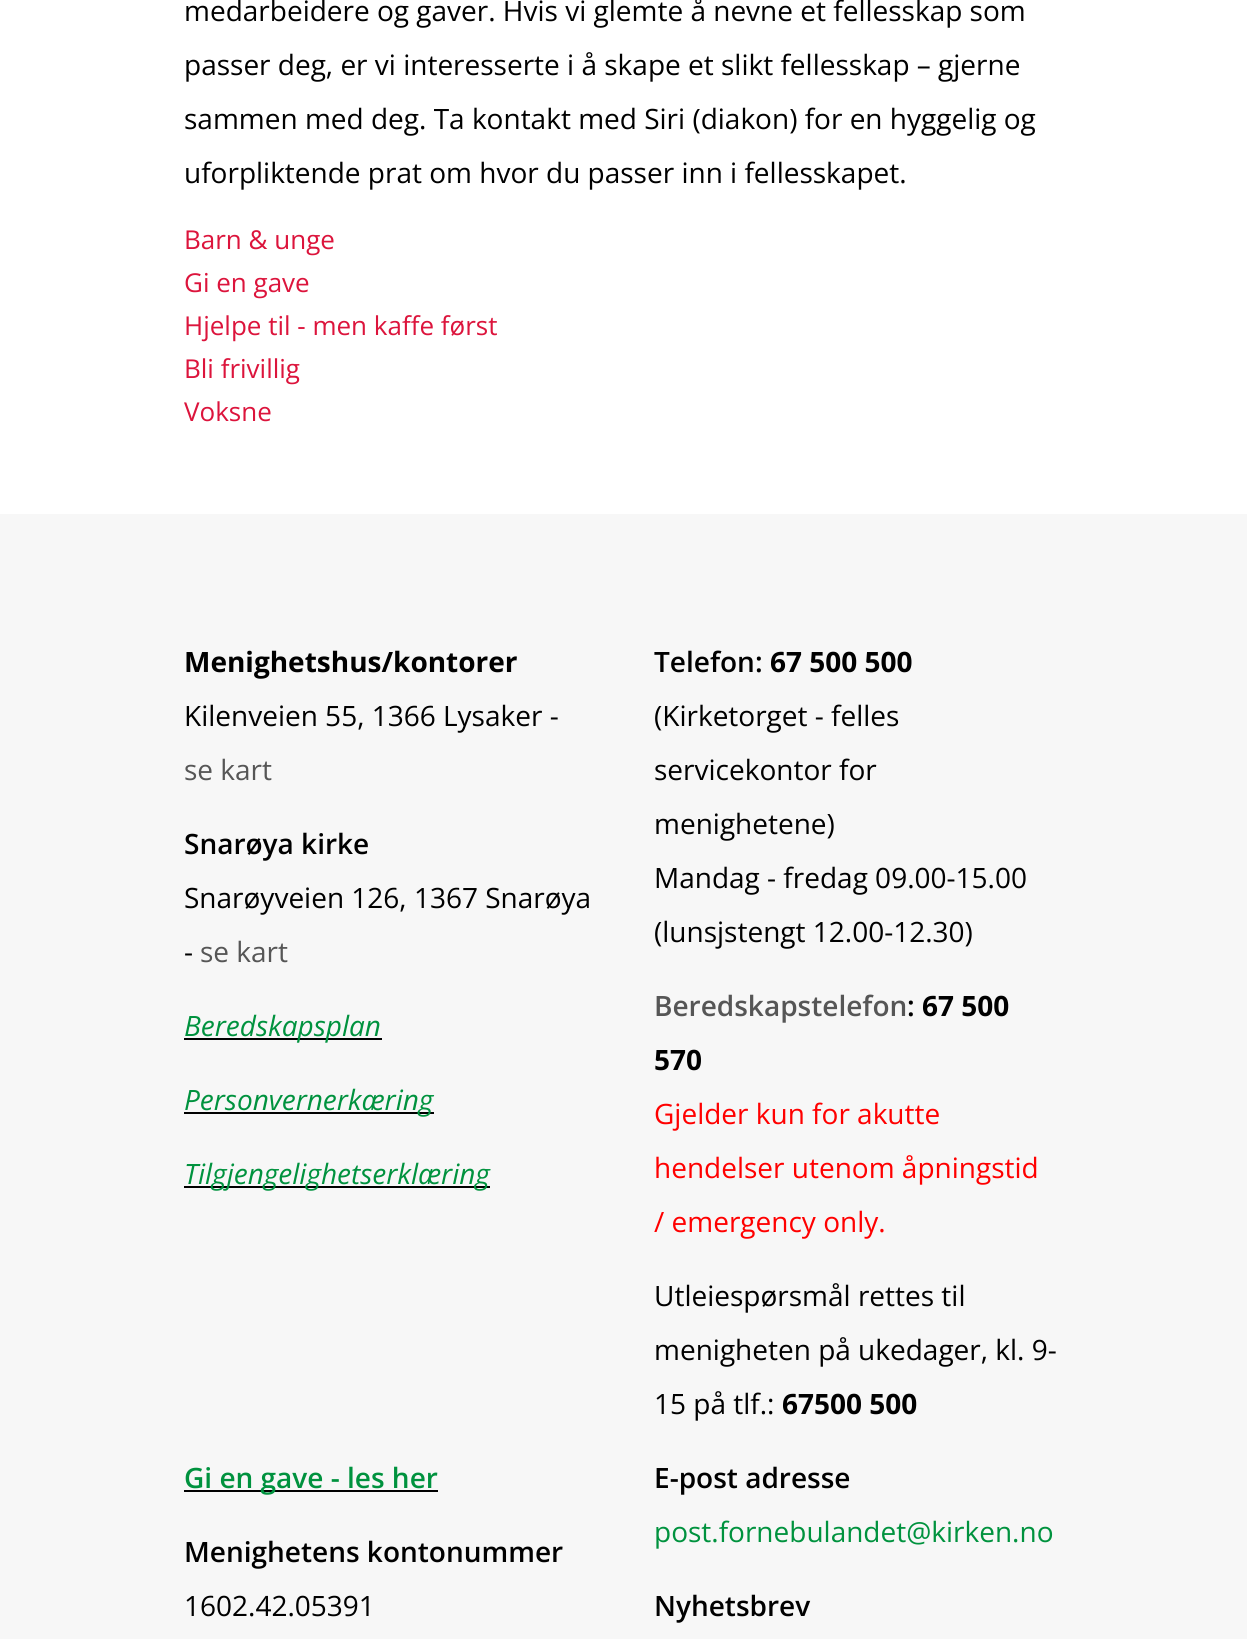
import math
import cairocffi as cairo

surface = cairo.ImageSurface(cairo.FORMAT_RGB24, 1247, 1639)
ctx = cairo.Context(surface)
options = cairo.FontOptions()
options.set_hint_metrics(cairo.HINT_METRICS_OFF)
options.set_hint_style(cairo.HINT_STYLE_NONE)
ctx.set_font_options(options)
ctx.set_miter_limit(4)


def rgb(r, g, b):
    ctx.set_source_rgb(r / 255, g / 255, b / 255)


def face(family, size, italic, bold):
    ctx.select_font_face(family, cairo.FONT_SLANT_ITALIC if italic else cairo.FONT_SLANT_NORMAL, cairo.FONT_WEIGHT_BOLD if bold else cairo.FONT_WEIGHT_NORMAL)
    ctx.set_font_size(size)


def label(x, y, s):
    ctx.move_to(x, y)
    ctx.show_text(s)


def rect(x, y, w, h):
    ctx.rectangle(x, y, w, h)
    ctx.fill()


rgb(255, 255, 255)
ctx.paint()
face('Open Sans', 28, 0, 0)
rgb(0, 0, 0)
label(184, 21, 'medarbeidere og gaver. Hvis vi glemte å nevne et fellesskap som')
label(184, 75, 'passer deg, er vi interesserte i å skape et slikt fellesskap – gjerne')
label(184, 129, 'sammen med deg. Ta kontakt med Siri (diakon) for en hyggelig og')
label(184, 183, 'uforpliktende prat om hvor du passer inn i fellesskapet.')
face('Open Sans', 26, 0, 0)
rgb(220, 20, 60)
label(184, 249, 'Barn & unge')
label(184, 292, 'Gi en gave')
label(184, 335, 'Hjelpe til - men kaffe først')
label(184, 378, 'Bli frivillig')
label(184, 421, 'Voksne')
rgb(247, 247, 247)
rect(0, 514, 1247, 1125)
face('Open Sans', 28, 0, 1)
rgb(0, 0, 0)
label(184, 672, 'Menighetshus/kontorer')
face('Open Sans', 28, 0, 0)
label(184, 726, 'Kilenveien 55, 1366 Lysaker -')
rgb(86, 86, 86)
label(184, 780, 'se kart')
face('Open Sans SemiBold', 28, 0, 0)
rgb(0, 0, 0)
label(184, 854, 'Snarøya kirke')
face('Open Sans', 28, 0, 0)
label(184, 908, 'Snarøyveien 126, 1367 Snarøya')
label(184, 962, '-')
rgb(86, 86, 86)
label(200, 962, 'se kart')
rgb(0, 0, 0)
rect(184, 1038, 198, 2)
face('Open Sans', 28, 1, 0)
rgb(0, 146, 62)
label(184, 1036, 'Beredskapsplan')
rgb(0, 0, 0)
rect(184, 1112, 250, 2)
rgb(0, 146, 62)
label(184, 1110, 'Personvernerkæring')
rgb(0, 0, 0)
rect(184, 1186, 306, 2)
rgb(0, 146, 62)
label(184, 1184, 'Tilgjengelighetserklæring')
face('Open Sans SemiBold', 28, 0, 0)
rgb(0, 0, 0)
label(654, 672, 'Telefon:')
face('Open Sans', 28, 0, 1)
label(770, 672, '67 500 500')
face('Open Sans', 28, 0, 0)
label(654, 726, '(Kirketorget - felles')
label(654, 780, 'servicekontor for')
label(654, 834, 'menighetene)')
label(654, 888, 'Mandag - fredag 09.00-15.00')
label(654, 942, '(lunsjstengt 12.00-12.30)')
face('Open Sans SemiBold', 28, 0, 0)
rgb(86, 86, 86)
label(654, 1016, 'Beredskapstelefon')
rgb(0, 0, 0)
label(907, 1016, ':')
face('Open Sans', 28, 0, 1)
label(922, 1016, '67 500')
label(654, 1070, '570')
face('Open Sans', 28, 0, 0)
rgb(255, 0, 0)
label(654, 1124, 'Gjelder kun for akutte')
label(654, 1178, 'hendelser utenom åpningstid')
label(654, 1232, '/ emergency only.')
rgb(0, 0, 0)
label(654, 1306, 'Utleiespørsmål rettes til')
label(654, 1360, 'menigheten på ukedager, kl. 9-')
label(654, 1414, '15 på tlf.:')
face('Open Sans', 28, 0, 1)
label(782, 1414, '67500 500')
rect(184, 1490, 254, 2)
face('Open Sans SemiBold', 28, 0, 0)
rgb(0, 146, 62)
label(184, 1488, 'Gi en gave - les her')
rgb(0, 0, 0)
label(184, 1562, 'Menighetens kontonummer')
face('Open Sans', 28, 0, 0)
label(184, 1616, '1602.42.05391')
face('Open Sans SemiBold', 28, 0, 0)
label(654, 1488, 'E-post adresse')
face('Open Sans', 28, 0, 0)
rgb(0, 146, 62)
label(654, 1542, 'post.fornebulandet@kirken.no')
face('Open Sans SemiBold', 28, 0, 0)
rgb(0, 0, 0)
label(654, 1616, 'Nyhetsbrev')
surface.write_to_png('render.png')
